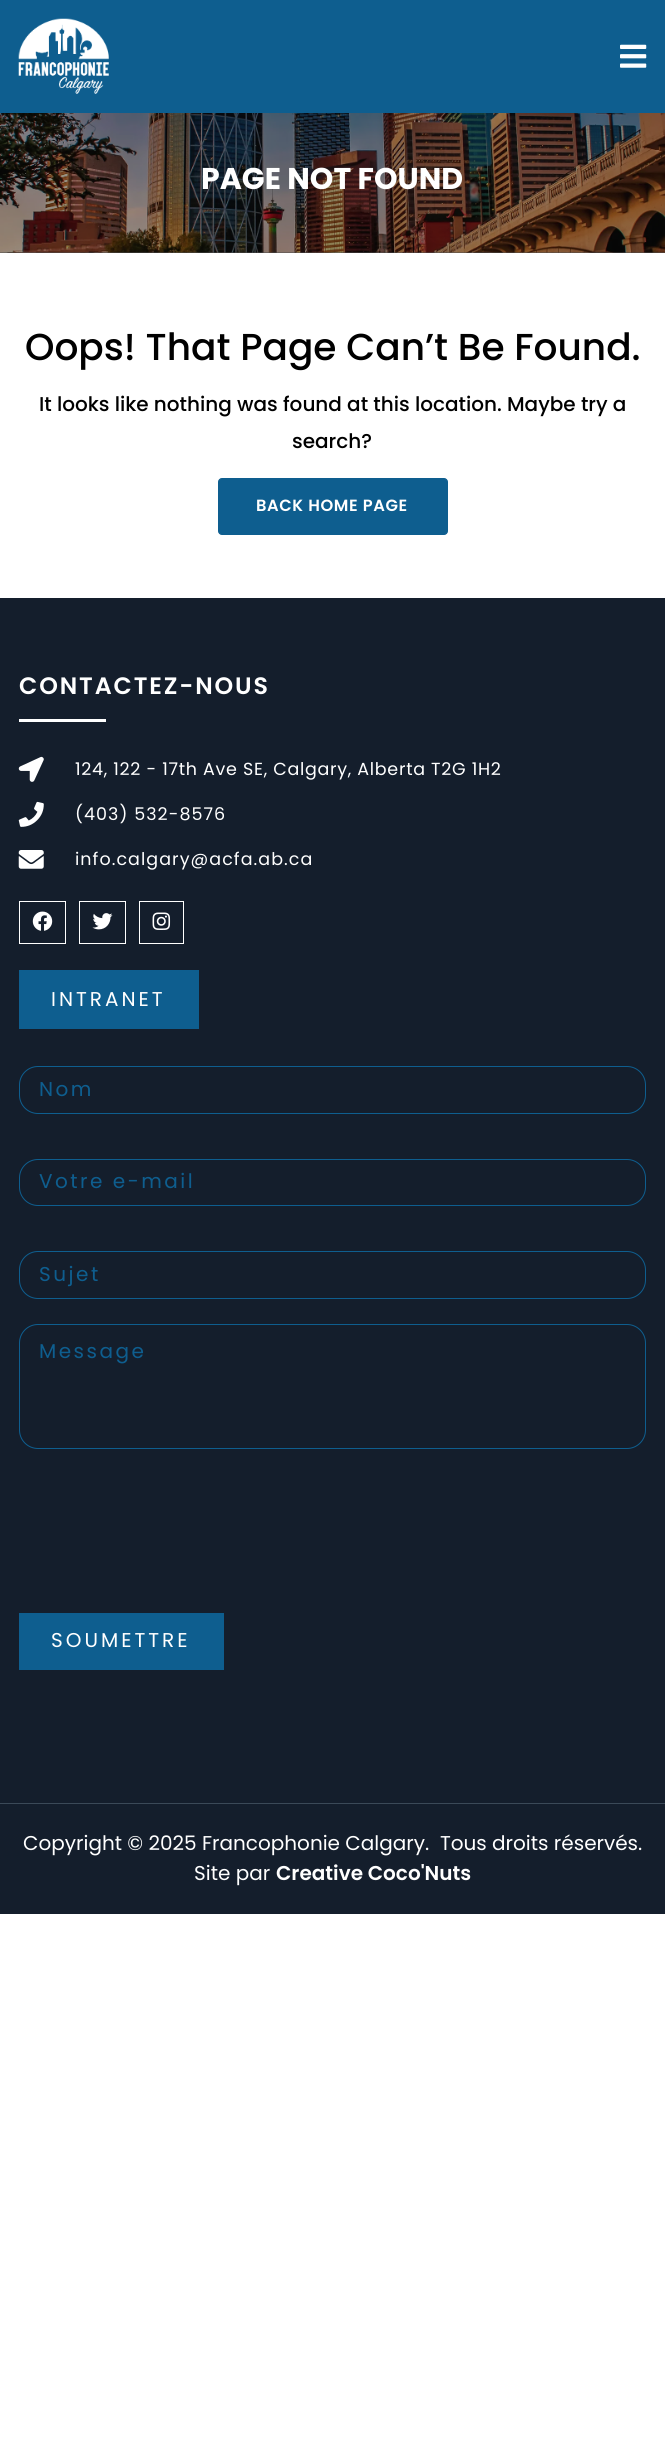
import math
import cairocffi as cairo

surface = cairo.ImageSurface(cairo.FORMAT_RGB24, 665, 2463)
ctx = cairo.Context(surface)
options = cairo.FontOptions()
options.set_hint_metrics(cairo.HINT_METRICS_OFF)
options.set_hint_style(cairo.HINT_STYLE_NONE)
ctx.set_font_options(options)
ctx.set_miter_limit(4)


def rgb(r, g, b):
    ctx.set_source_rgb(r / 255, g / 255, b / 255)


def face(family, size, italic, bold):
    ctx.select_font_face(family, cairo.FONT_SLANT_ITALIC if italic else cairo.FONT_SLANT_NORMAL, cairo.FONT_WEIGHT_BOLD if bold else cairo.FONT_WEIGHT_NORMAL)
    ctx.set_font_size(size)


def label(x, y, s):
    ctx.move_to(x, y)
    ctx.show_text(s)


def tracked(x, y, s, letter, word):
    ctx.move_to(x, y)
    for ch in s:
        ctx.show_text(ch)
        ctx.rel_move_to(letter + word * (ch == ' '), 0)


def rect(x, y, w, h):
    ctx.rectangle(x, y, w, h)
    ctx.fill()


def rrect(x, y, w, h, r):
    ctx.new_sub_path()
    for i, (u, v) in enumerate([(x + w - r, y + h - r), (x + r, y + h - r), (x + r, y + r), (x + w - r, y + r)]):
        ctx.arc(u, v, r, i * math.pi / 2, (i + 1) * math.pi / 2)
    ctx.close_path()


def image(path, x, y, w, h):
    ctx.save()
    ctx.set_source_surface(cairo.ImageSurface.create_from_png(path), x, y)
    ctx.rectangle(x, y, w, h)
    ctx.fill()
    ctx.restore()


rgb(255, 255, 255)
ctx.paint()
rgb(14, 94, 143)
rect(0, 0, 665, 113)
image('image0.png', 18, 18, 91, 76)
image('image1.png', 620, 44, 27, 24)
rgb(77, 77, 77)
rect(0, 252, 665, 1)
image('image2.png', 0, 113, 665, 140)
face('Poppins', 30, 0, 1)
rgb(255, 255, 255)
label(201, 189, 'PAGE NOT FOUND')
face('Poppins Medium', 37.5, 0, 0)
rgb(0, 0, 0)
label(25, 360, 'Oops! That Page Can’t Be Found.')
face('Poppins Medium', 20, 0, 0)
label(39, 411, 'It looks like nothing was found at this location. Maybe try a')
label(292, 448, 'search?')
rgb(14, 94, 143)
rrect(218.5, 478.5, 229, 56, 3.5)
ctx.fill_preserve()
ctx.set_line_width(1)
ctx.stroke()
face('Poppins SemiBold', 16.25, 0, 0)
rgb(255, 255, 255)
tracked(256, 511, 'BACK HOME PAGE', 0.6, 0)
rgb(20, 30, 44)
rect(0, 598, 665, 1316)
face('Poppins SemiBold', 23.75, 0, 0)
rgb(255, 255, 255)
tracked(19, 694, 'CONTACTEZ-NOUS', 1.9, 0)
rect(19, 719, 87, 3)
image('image3.png', 18, 756, 26, 26)
face('Poppins', 17.5, 0, 0)
tracked(75, 775, '124, 122 - 17th Ave SE, Calgary, Alberta T2G 1H2', 0.7, 0)
image('image4.png', 18, 801, 26, 26)
tracked(75, 820, '(403) 532-8576', 1.05, 0)
image('image5.png', 18, 850, 26, 19)
tracked(75, 865, 'info.calgary@acfa.ab.ca', 1.05, 0)
ctx.rectangle(19.5, 901.5, 46, 42)
ctx.stroke()
image('image6.png', 32, 911, 21, 20)
ctx.rectangle(79.5, 901.5, 46, 42)
ctx.stroke()
image('image7.png', 92, 913, 21, 17)
ctx.rectangle(139.5, 901.5, 44, 42)
ctx.stroke()
image('image8.png', 152, 912, 19, 18)
rgb(14, 94, 143)
rect(19, 970, 180, 59)
face('Poppins', 20, 0, 0)
rgb(255, 255, 255)
tracked(51, 1006, 'INTRANET', 3, 0)
rrect(19.5, 1066.5, 626, 47, 18.5)
rgb(14, 94, 143)
ctx.stroke()
tracked(39, 1096, 'Nom', 2.5, 0)
rrect(19.5, 1159.5, 626, 46, 18.5)
ctx.stroke()
tracked(39, 1188, 'Votre e-mail', 2.5, 0)
rrect(19.5, 1251.5, 626, 47, 18.5)
ctx.stroke()
tracked(39, 1281, 'Sujet', 2.5, 0)
rrect(19.5, 1324.5, 626, 124, 18.5)
ctx.stroke()
tracked(39, 1358, 'Message', 2.5, 0)
rect(19, 1613, 205, 57)
rgb(255, 255, 255)
tracked(51, 1647, 'SOUMETTRE', 3, 0)
rgb(59, 73, 88)
rect(0, 1803, 665, 1)
rgb(255, 255, 255)
label(23, 1850, 'Copyright © 2025 Francophonie Calgary.  Tous droits réservés.')
label(194, 1880, 'Site par')
face('Poppins SemiBold', 20, 0, 0)
label(276, 1880, 'Creative Coco\'Nuts')
surface.write_to_png('render.png')
